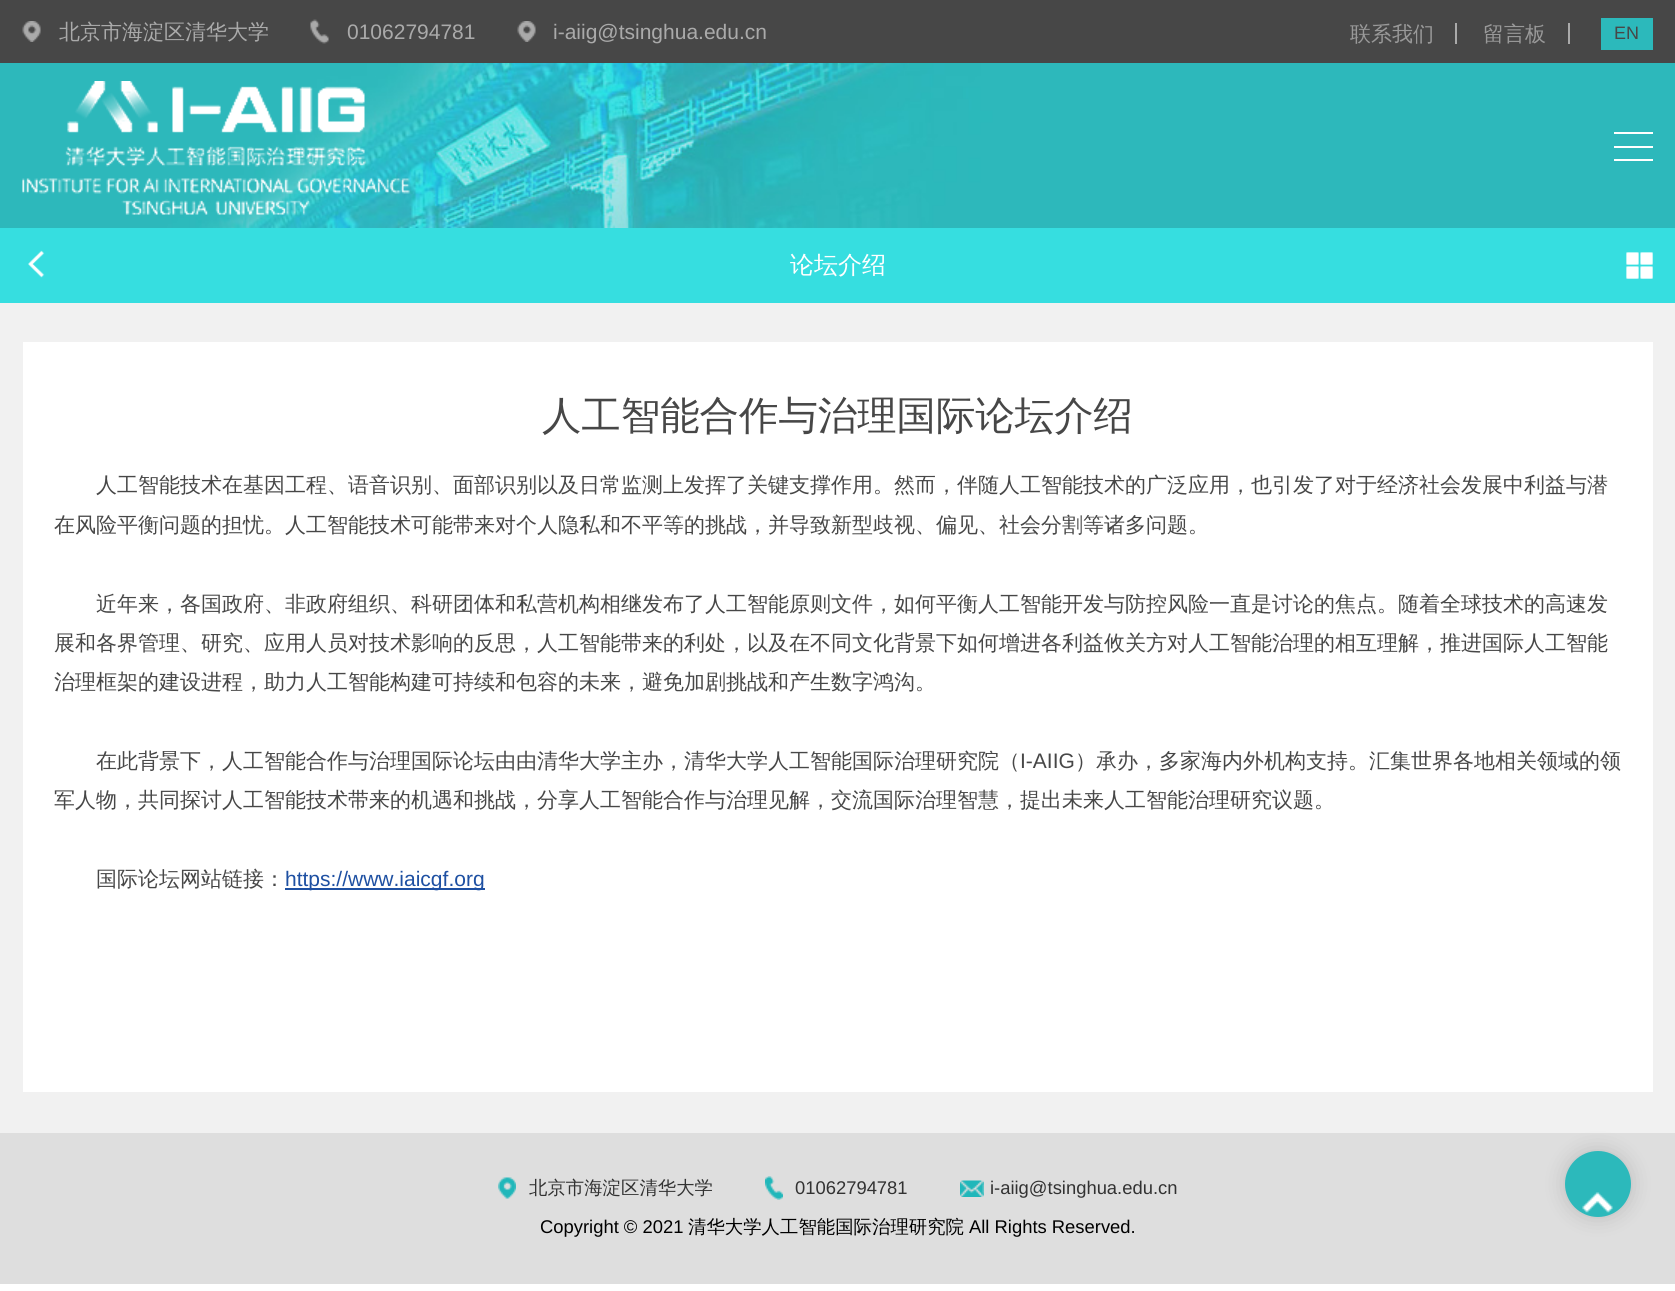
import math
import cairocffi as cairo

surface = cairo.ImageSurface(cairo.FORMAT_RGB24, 1675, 1291)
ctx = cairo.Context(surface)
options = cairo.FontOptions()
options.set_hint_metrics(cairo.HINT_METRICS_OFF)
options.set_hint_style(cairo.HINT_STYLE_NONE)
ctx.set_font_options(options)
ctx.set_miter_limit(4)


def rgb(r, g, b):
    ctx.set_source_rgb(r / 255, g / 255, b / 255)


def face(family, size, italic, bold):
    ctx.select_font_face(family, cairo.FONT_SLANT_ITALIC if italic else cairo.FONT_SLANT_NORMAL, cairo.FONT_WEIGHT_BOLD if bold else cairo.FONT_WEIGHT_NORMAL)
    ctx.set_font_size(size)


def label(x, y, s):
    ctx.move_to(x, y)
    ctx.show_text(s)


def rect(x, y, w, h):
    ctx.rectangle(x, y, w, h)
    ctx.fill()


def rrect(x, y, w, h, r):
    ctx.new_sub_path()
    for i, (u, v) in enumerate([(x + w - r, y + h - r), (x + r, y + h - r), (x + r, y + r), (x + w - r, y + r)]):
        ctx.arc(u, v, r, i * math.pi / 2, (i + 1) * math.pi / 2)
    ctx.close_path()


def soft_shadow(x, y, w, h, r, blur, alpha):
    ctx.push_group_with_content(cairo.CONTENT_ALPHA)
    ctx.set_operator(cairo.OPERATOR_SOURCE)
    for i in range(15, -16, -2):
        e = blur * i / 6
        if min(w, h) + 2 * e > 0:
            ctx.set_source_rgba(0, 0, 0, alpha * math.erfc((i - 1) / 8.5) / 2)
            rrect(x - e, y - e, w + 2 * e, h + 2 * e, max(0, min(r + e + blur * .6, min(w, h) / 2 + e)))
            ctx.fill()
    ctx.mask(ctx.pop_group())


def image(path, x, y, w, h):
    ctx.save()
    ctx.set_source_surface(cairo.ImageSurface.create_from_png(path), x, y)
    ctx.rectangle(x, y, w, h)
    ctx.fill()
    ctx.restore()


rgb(255, 255, 255)
ctx.paint()
rgb(71, 71, 71)
rect(0, 0, 1675, 63)
image('image0.png', 22, 21, 19, 21)
face('WenQuanYi Zen Hei Medium', 21, 0, 0)
rgb(170, 170, 170)
label(59, 39, '北京市海淀区清华大学')
image('image1.png', 310, 19, 19, 25)
face('Liberation Sans', 21, 0, 0)
label(347, 39, '01062794781')
image('image2.png', 517, 21, 19, 21)
label(553, 39, 'i-aiig@tsinghua.edu.cn')
rect(1455, 23, 2, 21)
face('WenQuanYi Zen Hei Medium', 21, 0, 0)
rgb(153, 153, 153)
label(1350, 41, '联系我们')
rgb(170, 170, 170)
rect(1568, 23, 2, 21)
rgb(153, 153, 153)
label(1483, 41, '留言板')
rgb(44, 185, 187)
rect(1601, 18, 52, 32)
face('Liberation Sans', 18, 0, 0)
rgb(71, 71, 71)
label(1614, 39, 'EN')
image('image3.png', 0, 63, 1675, 165)
image('image4.png', 22, 81, 388, 134)
rgb(255, 255, 255)
rect(1614, 132, 39, 2)
rect(1614, 146, 39, 2)
rect(1614, 159, 39, 2)
rgb(54, 222, 224)
rect(0, 228, 1675, 75)
image('image5.png', 28, 250, 17, 28)
face('WenQuanYi Zen Hei Medium', 24, 0, 0)
rgb(255, 255, 255)
label(790, 273, '论坛介绍')
image('image6.png', 1626, 252, 27, 27)
rgb(241, 241, 241)
rect(0, 303, 1675, 830)
rgb(255, 255, 255)
rect(23, 342, 1630, 750)
face('WenQuanYi Zen Hei Medium', 39.4, 0, 0)
rgb(71, 71, 71)
label(542, 429, '人工智能合作与治理国际论坛介绍')
face('WenQuanYi Zen Hei Medium', 21, 0, 0)
label(96, 492, '人工智能技术在基因工程、语音识别、面部识别以及日常监测上发挥了关键支撑作用。然而，伴随人工智能技术的广泛应用，也引发了对于经济社会发展中利益与潜')
label(54, 532, '在风险平衡问题的担忧。人工智能技术可能带来对个人隐私和不平等的挑战，并导致新型歧视、偏见、社会分割等诸多问题。')
label(96, 611, '近年来，各国政府、非政府组织、科研团体和私营机构相继发布了人工智能原则文件，如何平衡人工智能开发与防控风险一直是讨论的焦点。随着全球技术的高速发')
label(54, 650, '展和各界管理、研究、应用人员对技术影响的反思，人工智能带来的利处，以及在不同文化背景下如何增进各利益攸关方对人工智能治理的相互理解，推进国际人工智能')
label(54, 689, '治理框架的建设进程，助力人工智能构建可持续和包容的未来，避免加剧挑战和产生数字鸿沟。')
label(96, 768, '在此背景下，人工智能合作与治理国际论坛由由清华大学主办，清华大学人工智能国际治理研究院（')
face('Liberation Sans', 21, 0, 0)
label(1020, 768, 'I-AIIG')
face('WenQuanYi Zen Hei Medium', 21, 0, 0)
label(1075, 768, '）承办，多家海内外机构支持。汇集世界各地相关领域的领')
label(54, 807, '军人物，共同探讨人工智能技术带来的机遇和挑战，分享人工智能合作与治理见解，交流国际治理智慧，提出未来人工智能治理研究议题。')
label(96, 886, '国际论坛网站链接：')
rgb(30, 80, 162)
rect(285, 888, 200, 2)
face('Liberation Sans', 21, 0, 0)
label(285, 886, 'https://www.iaicgf.org')
rgb(222, 222, 222)
rect(0, 1133, 1675, 151)
image('image7.png', 498, 1177, 18, 22)
face('WenQuanYi Zen Hei Medium', 18.4, 0, 0)
rgb(50, 50, 50)
label(529, 1194, '北京市海淀区清华大学')
image('image8.png', 765, 1176, 18, 24)
face('Liberation Sans', 18.4, 0, 0)
label(795, 1194, '01062794781')
image('image9.png', 960, 1180, 24, 17)
label(990, 1194, 'i-aiig@tsinghua.edu.cn')
rgb(0, 0, 0)
label(540, 1233, 'Copyright © 2021')
face('WenQuanYi Zen Hei Medium', 18.4, 0, 0)
label(688, 1233, '清华大学人工智能国际治理研究院')
face('Liberation Sans', 18.4, 0, 0)
label(969, 1233, 'All Rights Reserved.')
rgb(0, 0, 0)
soft_shadow(1565, 1151, 66, 66, 33, 11, 0.15)
rgb(44, 185, 187)
ctx.arc(1598, 1184, 33, 0, 2 * math.pi)
ctx.fill()
image('image10.png', 1582, 1192, 31, 21)
surface.write_to_png('render.png')
